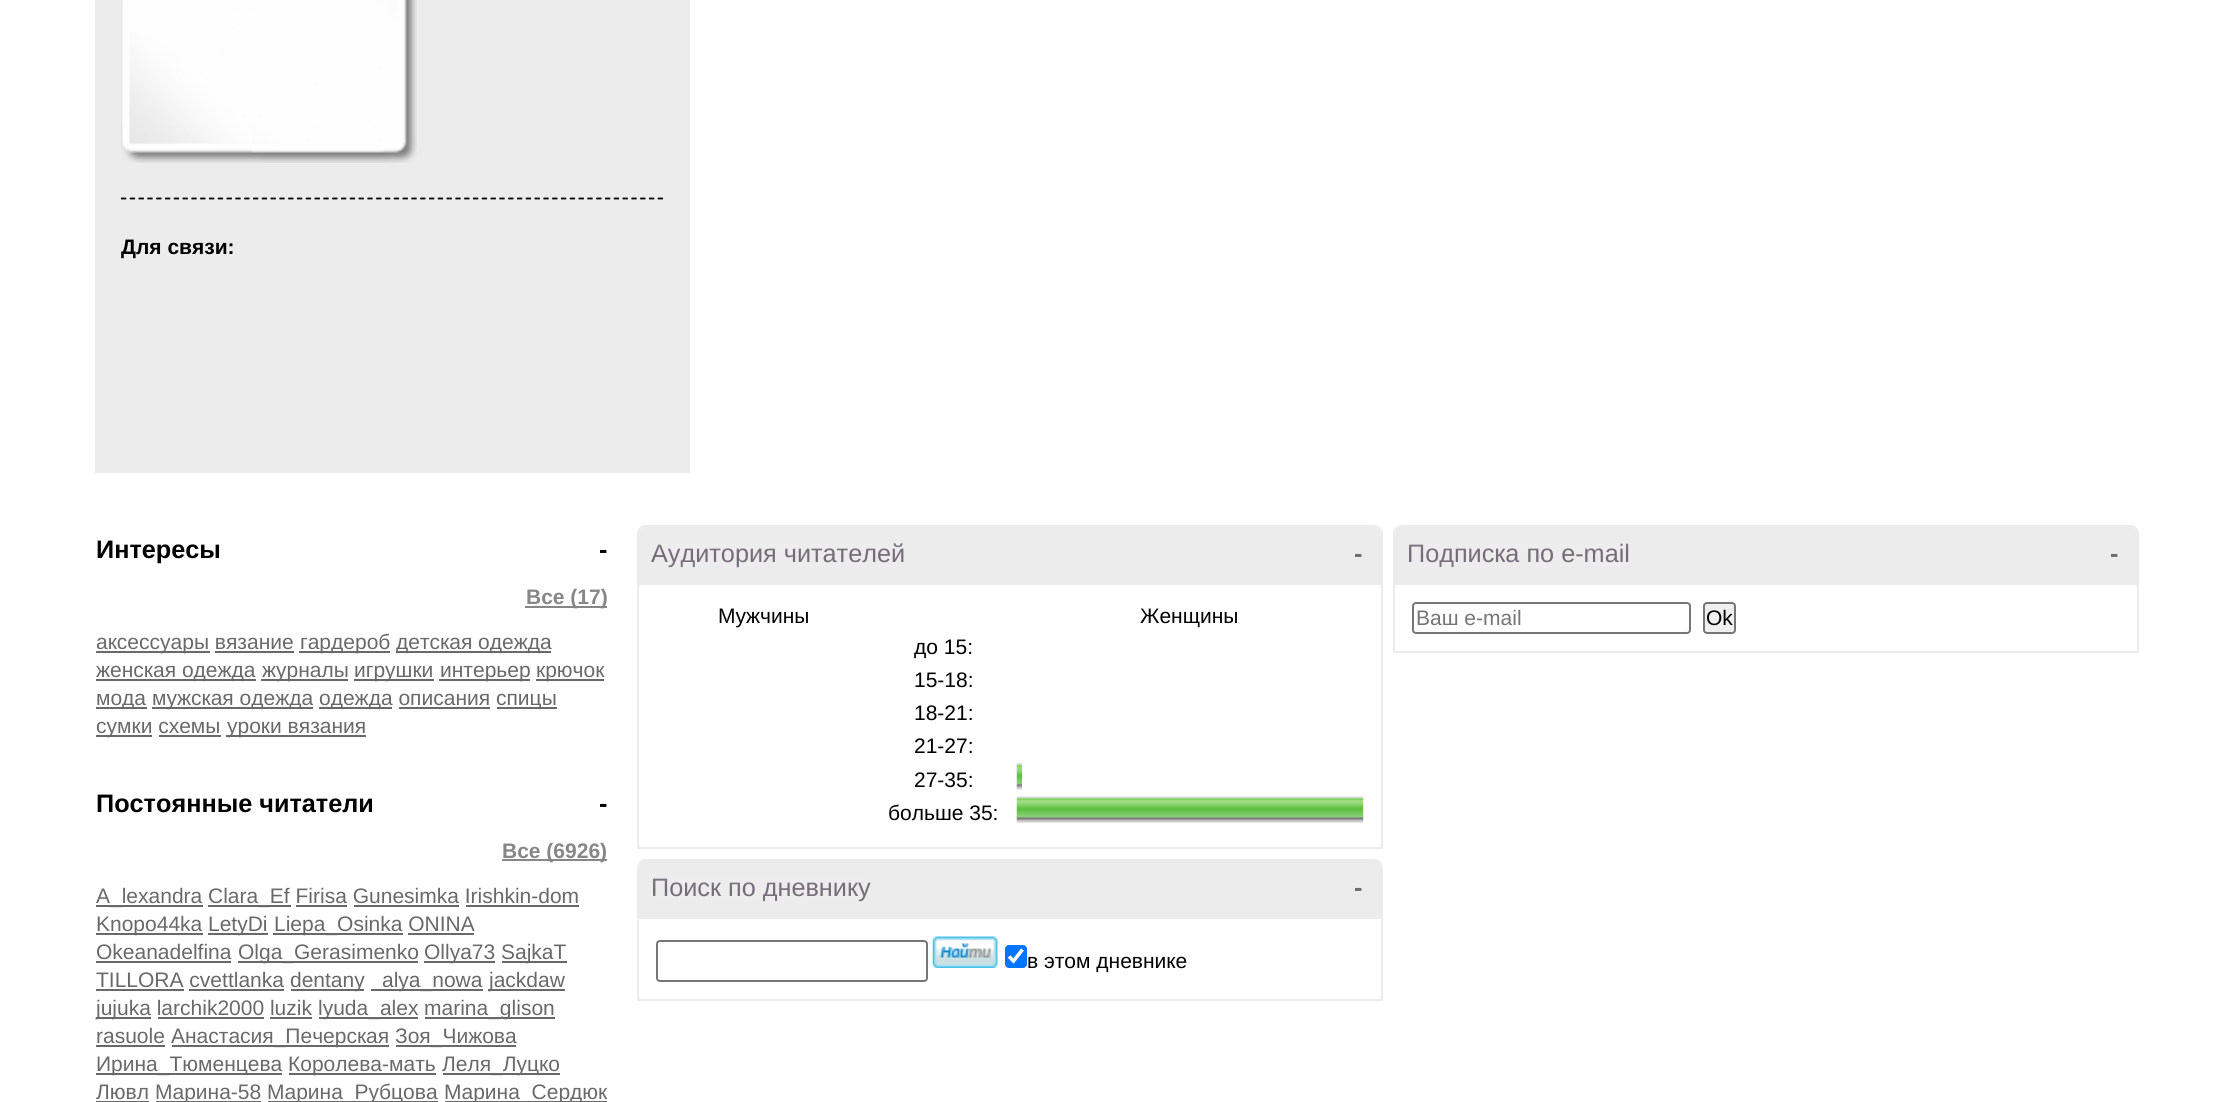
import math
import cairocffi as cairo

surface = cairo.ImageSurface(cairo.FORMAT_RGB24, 2219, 1102)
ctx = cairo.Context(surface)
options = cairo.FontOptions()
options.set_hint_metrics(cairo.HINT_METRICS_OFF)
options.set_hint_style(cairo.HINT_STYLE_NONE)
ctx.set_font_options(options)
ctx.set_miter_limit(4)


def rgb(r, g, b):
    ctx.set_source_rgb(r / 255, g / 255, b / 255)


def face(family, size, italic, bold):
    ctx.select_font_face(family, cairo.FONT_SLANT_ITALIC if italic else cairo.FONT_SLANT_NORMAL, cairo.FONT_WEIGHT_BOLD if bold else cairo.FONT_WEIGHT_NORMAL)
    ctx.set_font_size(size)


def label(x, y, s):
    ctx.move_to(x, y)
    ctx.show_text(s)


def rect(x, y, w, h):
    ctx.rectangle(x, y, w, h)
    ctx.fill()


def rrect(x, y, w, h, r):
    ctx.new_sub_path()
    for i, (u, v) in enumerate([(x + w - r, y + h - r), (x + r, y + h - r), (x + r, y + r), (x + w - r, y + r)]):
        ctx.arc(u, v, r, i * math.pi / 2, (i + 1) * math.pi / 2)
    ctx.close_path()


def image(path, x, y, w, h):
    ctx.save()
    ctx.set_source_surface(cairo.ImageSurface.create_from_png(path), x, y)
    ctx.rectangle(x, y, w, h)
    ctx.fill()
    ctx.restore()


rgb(255, 255, 255)
ctx.paint()
rgb(236, 236, 236)
rect(95, 0, 595, 473)
image('image0.png', 121, 0, 296, 163)
ctx.new_path()
ctx.move_to(121, 198.5)
ctx.line_to(663, 198.5)
rgb(0, 0, 0)
ctx.set_line_width(1.8)
ctx.set_dash([5.25, 3.55])
ctx.stroke()
face('Liberation Sans', 21, 0, 1)
label(121, 254, 'Для связи:')
face('Liberation Sans', 25.25, 0, 1)
label(96, 558, 'Интересы')
label(599, 558, '-')
rgb(135, 135, 135)
rect(525, 606, 82, 2)
face('Liberation Sans', 21, 0, 1)
label(526, 604, 'Все (17)')
rgb(105, 105, 105)
rect(96, 651, 114, 2)
face('Liberation Sans', 21, 0, 0)
label(96, 649, 'аксессуары вязание')
rect(299, 651, 91, 2)
label(300, 649, 'гардероб')
rect(396, 651, 155, 2)
label(396, 649, 'детская одежда')
rect(215, 651, 79, 2)
rect(96, 679, 160, 2)
label(96, 677, 'женская одежда')
rect(261, 679, 87, 2)
label(262, 677, 'журналы')
rect(354, 679, 80, 2)
label(354, 677, 'игрушки')
rect(439, 679, 91, 2)
label(440, 677, 'интерьер')
rect(536, 679, 68, 2)
label(536, 677, 'крючок')
rect(96, 707, 51, 2)
label(96, 705, 'мода')
rect(152, 707, 161, 2)
label(152, 705, 'мужская одежда')
rect(319, 707, 73, 2)
label(319, 705, 'одежда описания')
rect(497, 707, 60, 2)
label(496, 705, 'спицы')
rect(399, 707, 91, 2)
rect(96, 735, 56, 2)
label(96, 733, 'сумки схемы')
rect(226, 735, 140, 2)
label(227, 733, 'уроки вязания')
rect(159, 735, 62, 2)
face('Liberation Sans', 25.25, 0, 1)
rgb(0, 0, 0)
label(96, 812, 'Постоянные читатели')
label(599, 812, '-')
rgb(135, 135, 135)
rect(502, 859, 105, 2)
face('Liberation Sans', 21, 0, 1)
label(502, 858, 'Все (6926)')
rgb(105, 105, 105)
rect(96, 905, 107, 2)
face('Liberation Sans', 21, 0, 0)
label(96, 903, 'A_lexandra')
rect(208, 905, 83, 2)
label(208, 903, 'Clara_Ef Firisa Gunesimka Irishkin-dom')
rect(296, 905, 51, 2)
rect(354, 905, 105, 2)
rect(466, 905, 113, 2)
rect(96, 933, 107, 2)
label(96, 931, 'Knopo44ka')
rect(208, 933, 60, 2)
label(208, 931, 'LetyDi')
rect(273, 933, 130, 2)
label(274, 931, 'Liepa_Osinka ONINA')
rect(408, 933, 66, 2)
label(96, 959, 'Okeanadelfina')
rect(96, 961, 135, 2)
rect(238, 961, 180, 2)
label(238, 959, 'Olga_Gerasimenko')
rect(424, 961, 71, 2)
label(424, 959, 'Ollya73')
rect(502, 961, 65, 2)
label(501, 959, 'SajkaT')
label(96, 987, 'TILLORA cvettlanka')
rect(96, 989, 88, 2)
rect(291, 989, 73, 2)
label(290, 987, 'dentany')
rect(371, 989, 112, 2)
label(382, 987, 'alya_nowa')
rect(488, 989, 77, 2)
label(489, 987, 'jackdaw')
rect(189, 989, 95, 2)
rect(96, 1017, 55, 2)
label(96, 1015, 'jujuka larchik2000 luzik')
rect(319, 1017, 99, 2)
label(318, 1015, 'lyuda_alex')
rect(425, 1017, 130, 2)
label(424, 1015, 'marina_glison')
rect(158, 1017, 106, 2)
rect(270, 1017, 42, 2)
label(96, 1043, 'rasuole')
rect(96, 1045, 69, 2)
rect(172, 1045, 217, 2)
label(171, 1043, 'Анастасия_Печерская')
rect(396, 1045, 120, 2)
label(395, 1043, 'Зоя_Чижова')
rect(96, 1073, 186, 2)
label(96, 1071, 'Ирина_Тюменцева')
rect(289, 1073, 147, 2)
label(288, 1071, 'Королева-мать')
rect(443, 1073, 117, 2)
label(442, 1071, 'Леля_Луцко')
label(96, 1099, 'Лювл')
rect(96, 1101, 53, 1)
rect(156, 1101, 105, 1)
label(155, 1099, 'Марина-58')
rect(268, 1101, 170, 1)
label(267, 1099, 'Марина_Рубцова')
rect(445, 1101, 162, 1)
label(444, 1099, 'Марина_Сердюк')
ctx.new_path()
ctx.move_to(646, 526)
ctx.line_to(1374, 526)
ctx.curve_to(1378.5, 526, 1382, 529.5, 1382, 534)
ctx.line_to(1382, 848)
ctx.line_to(638, 848)
ctx.line_to(638, 534)
ctx.curve_to(638, 529.5, 641.5, 526, 646, 526)
ctx.close_path()
rgb(236, 236, 236)
ctx.set_line_width(2)
ctx.set_dash([])
ctx.stroke()
ctx.new_path()
ctx.move_to(646, 527)
ctx.line_to(1374, 527)
ctx.curve_to(1378, 527, 1381, 530, 1381, 534)
ctx.line_to(1381, 585)
ctx.line_to(639, 585)
ctx.line_to(639, 534)
ctx.curve_to(639, 530, 642, 527, 646, 527)
ctx.close_path()
ctx.fill()
face('Liberation Sans', 25.25, 0, 0)
rgb(115, 106, 117)
label(651, 562, 'Аудитория читателей')
face('Liberation Sans', 25.25, 0, 1)
label(1354, 562, '-')
image('image1.png', 656, 543, 247, 24)
face('Liberation Sans', 21, 0, 0)
rgb(0, 0, 0)
label(718, 623, 'Мужчины')
label(1140, 623, 'Женщины')
label(914, 654, 'до 15:')
label(914, 687, '15-18:')
label(914, 720, '18-21:')
label(914, 753, '21-27:')
label(914, 787, '27-35:')
image('image2.png', 1016, 763, 6, 27)
label(888, 820, 'больше 35:')
image('image3.png', 1016, 796, 348, 27)
ctx.new_path()
ctx.move_to(646, 860)
ctx.line_to(1374, 860)
ctx.curve_to(1378.5, 860, 1382, 863.5, 1382, 868)
ctx.line_to(1382, 1000)
ctx.line_to(638, 1000)
ctx.line_to(638, 868)
ctx.curve_to(638, 863.5, 641.5, 860, 646, 860)
ctx.close_path()
rgb(236, 236, 236)
ctx.stroke()
ctx.new_path()
ctx.move_to(646, 861)
ctx.line_to(1374, 861)
ctx.curve_to(1378, 861, 1381, 864, 1381, 868)
ctx.line_to(1381, 919)
ctx.line_to(639, 919)
ctx.line_to(639, 868)
ctx.curve_to(639, 864, 642, 861, 646, 861)
ctx.close_path()
ctx.fill()
face('Liberation Sans', 25.25, 0, 0)
rgb(115, 106, 117)
label(651, 896, 'Поиск по дневнику')
face('Liberation Sans', 25.25, 0, 1)
label(1354, 896, '-')
image('image4.png', 653, 878, 217, 23)
rrect(657, 941, 270, 40, 3)
rgb(118, 118, 118)
ctx.stroke()
image('image5.png', 932, 936, 66, 32)
rgb(0, 117, 255)
rrect(1005, 945, 22, 23, 4)
ctx.fill()
ctx.new_path()
ctx.move_to(1009, 956.5)
ctx.line_to(1013.5, 961)
ctx.line_to(1022.5, 949.5)
rgb(255, 255, 255)
ctx.set_line_width(3.6)
ctx.stroke()
face('Liberation Sans', 21, 0, 0)
rgb(0, 0, 0)
label(1027, 968, 'в этом дневнике')
ctx.new_path()
ctx.move_to(1402, 526)
ctx.line_to(2130, 526)
ctx.curve_to(2134.5, 526, 2138, 529.5, 2138, 534)
ctx.line_to(2138, 652)
ctx.line_to(1394, 652)
ctx.line_to(1394, 534)
ctx.curve_to(1394, 529.5, 1397.5, 526, 1402, 526)
ctx.close_path()
rgb(236, 236, 236)
ctx.set_line_width(2)
ctx.stroke()
ctx.new_path()
ctx.move_to(1402, 527)
ctx.line_to(2130, 527)
ctx.curve_to(2134, 527, 2137, 530, 2137, 534)
ctx.line_to(2137, 585)
ctx.line_to(1395, 585)
ctx.line_to(1395, 534)
ctx.curve_to(1395, 530, 1398, 527, 1402, 527)
ctx.close_path()
ctx.fill()
face('Liberation Sans', 25.25, 0, 0)
rgb(115, 106, 117)
label(1407, 562, 'Подписка по e-mail')
face('Liberation Sans', 25.25, 0, 1)
label(2110, 562, '-')
image('image6.png', 1409, 543, 219, 24)
rrect(1413, 603, 277, 30, 3)
rgb(118, 118, 118)
ctx.stroke()
face('Liberation Sans', 21, 0, 0)
rgb(117, 117, 117)
label(1416, 625, 'Ваш e-mail')
rgb(239, 239, 239)
rrect(1704, 603, 31, 30, 3)
ctx.fill_preserve()
rgb(118, 118, 118)
ctx.stroke()
rgb(0, 0, 0)
label(1706, 625, 'Ok')
surface.write_to_png('render.png')
